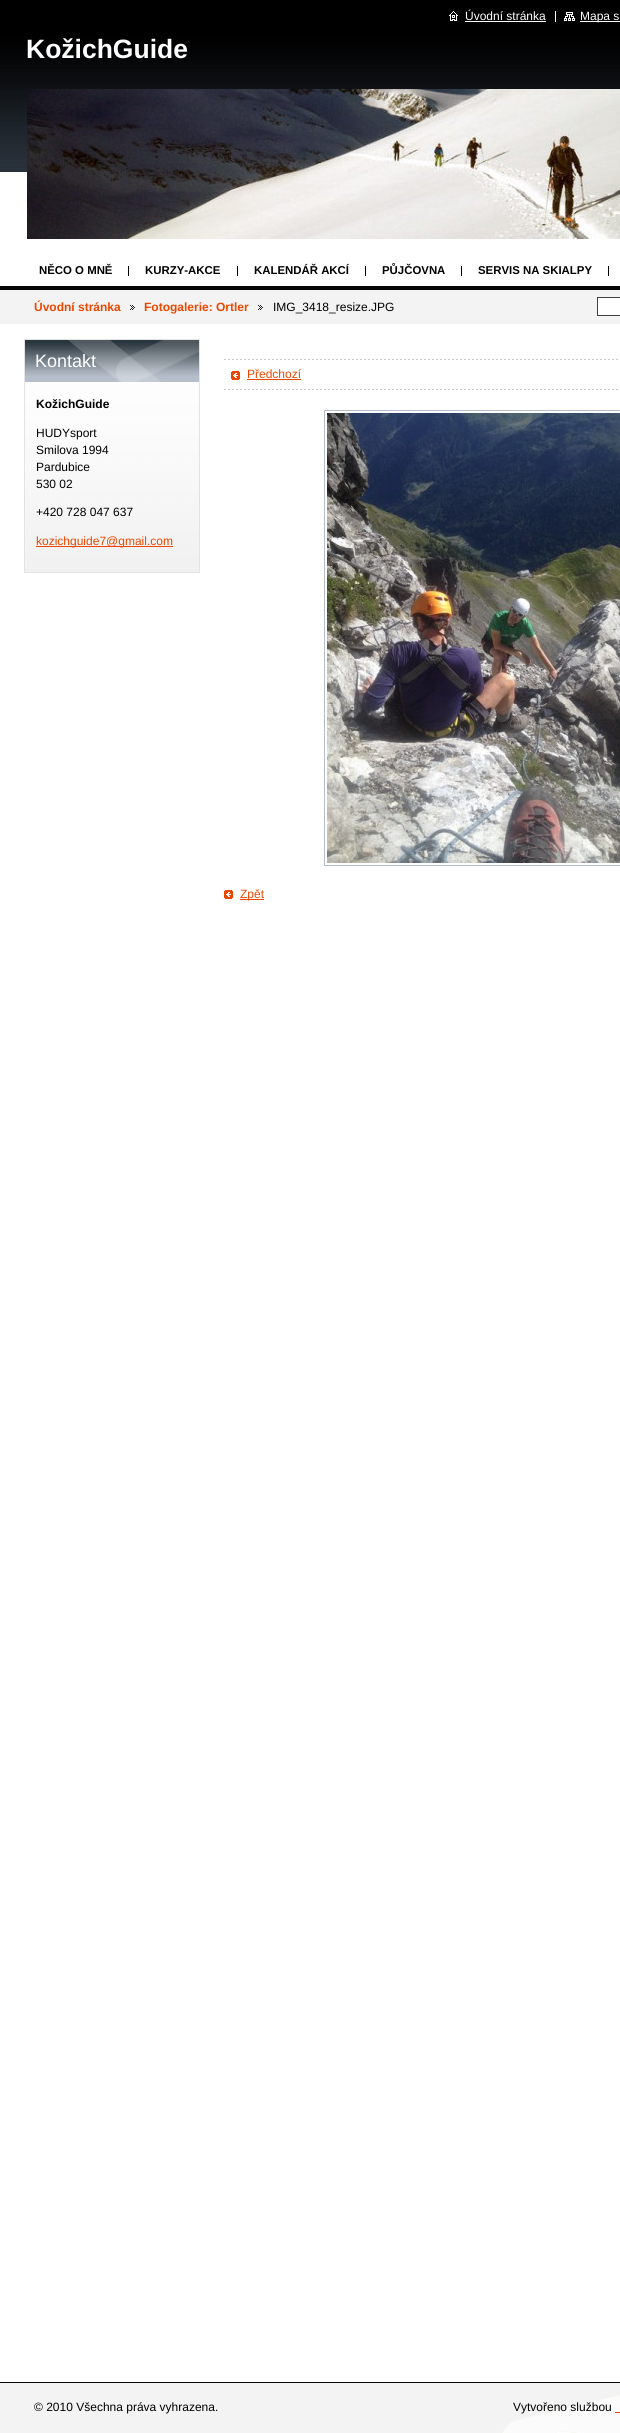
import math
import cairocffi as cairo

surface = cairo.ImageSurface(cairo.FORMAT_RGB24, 620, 2433)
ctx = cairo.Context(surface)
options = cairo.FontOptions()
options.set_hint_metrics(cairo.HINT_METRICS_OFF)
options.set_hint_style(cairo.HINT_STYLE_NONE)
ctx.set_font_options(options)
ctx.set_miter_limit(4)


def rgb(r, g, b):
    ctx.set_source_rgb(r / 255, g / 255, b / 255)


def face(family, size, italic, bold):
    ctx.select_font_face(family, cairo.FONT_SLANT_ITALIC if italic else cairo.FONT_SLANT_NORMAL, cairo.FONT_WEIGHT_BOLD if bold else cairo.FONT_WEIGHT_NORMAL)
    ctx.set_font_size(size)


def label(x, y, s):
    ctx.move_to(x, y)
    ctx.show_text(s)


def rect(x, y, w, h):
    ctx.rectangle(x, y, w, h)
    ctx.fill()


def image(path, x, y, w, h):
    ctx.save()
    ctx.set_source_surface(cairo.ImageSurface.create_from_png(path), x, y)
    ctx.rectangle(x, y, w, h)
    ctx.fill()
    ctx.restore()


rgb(255, 255, 255)
ctx.paint()
rgb(0, 0, 0)
rect(0, 0, 620, 34)
image('image0.png', 449, 11, 9, 10)
face('Liberation Sans', 12, 0, 0)
rgb(255, 255, 255)
label(465, 20, 'Úvodní stránka')
rect(465, 21, 81, 1)
image('image1.png', 564, 11, 11, 10)
rect(580, 21, 40, 1)
label(580, 20, 'Mapa s')
rect(555, 11, 1, 11)
image('image2.png', 0, 34, 620, 138)
face('Liberation Sans', 26.5, 0, 1)
label(26, 58, 'KožichGuide')
image('image3.png', 27, 89, 593, 150)
face('Liberation Sans', 11.4, 0, 1)
rgb(0, 0, 0)
label(39, 274, 'NĚCO O MNĚ')
rect(128, 266, 1, 10)
label(145, 274, 'KURZY-AKCE')
rect(237, 266, 1, 10)
label(254, 274, 'KALENDÁŘ AKCÍ')
rect(365, 266, 1, 10)
label(382, 274, 'PŮJČOVNA')
rect(461, 266, 1, 10)
label(478, 274, 'SERVIS NA SKIALPY')
rect(608, 266, 1, 10)
rgb(243, 243, 243)
rect(0, 290, 620, 34)
rgb(5, 5, 5)
rect(0, 286, 620, 4)
face('Liberation Sans', 12, 0, 1)
rgb(236, 71, 0)
label(34, 311, 'Úvodní stránka')
image('image4.png', 130, 305, 5, 5)
label(144, 311, 'Fotogalerie: Ortler')
image('image4.png', 258, 305, 5, 5)
face('Liberation Sans', 12, 0, 0)
rgb(0, 0, 0)
label(273, 311, 'IMG_3418_resize.JPG')
rgb(255, 255, 255)
ctx.rectangle(597.5, 297.5, 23, 18)
ctx.fill_preserve()
rgb(64, 64, 64)
ctx.set_line_width(1)
ctx.stroke()
image('image5.png', 25, 382, 174, 190)
ctx.rectangle(24.5, 339.5, 175, 233)
rgb(227, 227, 227)
ctx.stroke()
image('image6.png', 25, 340, 174, 42)
face('Liberation Sans', 18, 0, 0)
rgb(255, 255, 255)
label(35, 367, 'Kontakt')
face('Liberation Sans', 12, 0, 1)
rgb(0, 0, 0)
label(36, 408, 'KožichGuide')
face('Liberation Sans', 12, 0, 0)
label(36, 437, 'HUDYsport')
label(36, 454, 'Smilova 1994')
label(36, 471, 'Pardubice')
label(36, 488, '530 02')
label(36, 516, '+420 728 047 637')
rgb(236, 71, 0)
rect(36, 546, 137, 1)
label(36, 545, 'kozichguide7@gmail.com')
image('image7.png', 224, 359, 394, 1)
image('image7.png', 224, 389, 394, 1)
image('image8.png', 231, 371, 9, 9)
label(247, 378, 'Předchozí')
rect(247, 379, 54, 1)
ctx.rectangle(324.5, 410.5, 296, 455)
rgb(180, 188, 199)
ctx.stroke()
image('image9.png', 327, 413, 293, 450)
image('image8.png', 224, 890, 9, 9)
rgb(236, 71, 0)
rect(240, 899, 24, 1)
label(240, 898, 'Zpět')
rgb(243, 243, 243)
rect(0, 2383, 620, 50)
rgb(5, 5, 5)
rect(0, 2382, 620, 1)
image('image10.png', 502, 2395, 118, 38)
rgb(0, 0, 0)
label(34, 2411, '© 2010 Všechna práva vyhrazena.')
label(513, 2411, 'Vytvořeno službou')
rgb(236, 71, 0)
rect(615, 2412, 5, 1)
surface.write_to_png('render.png')
